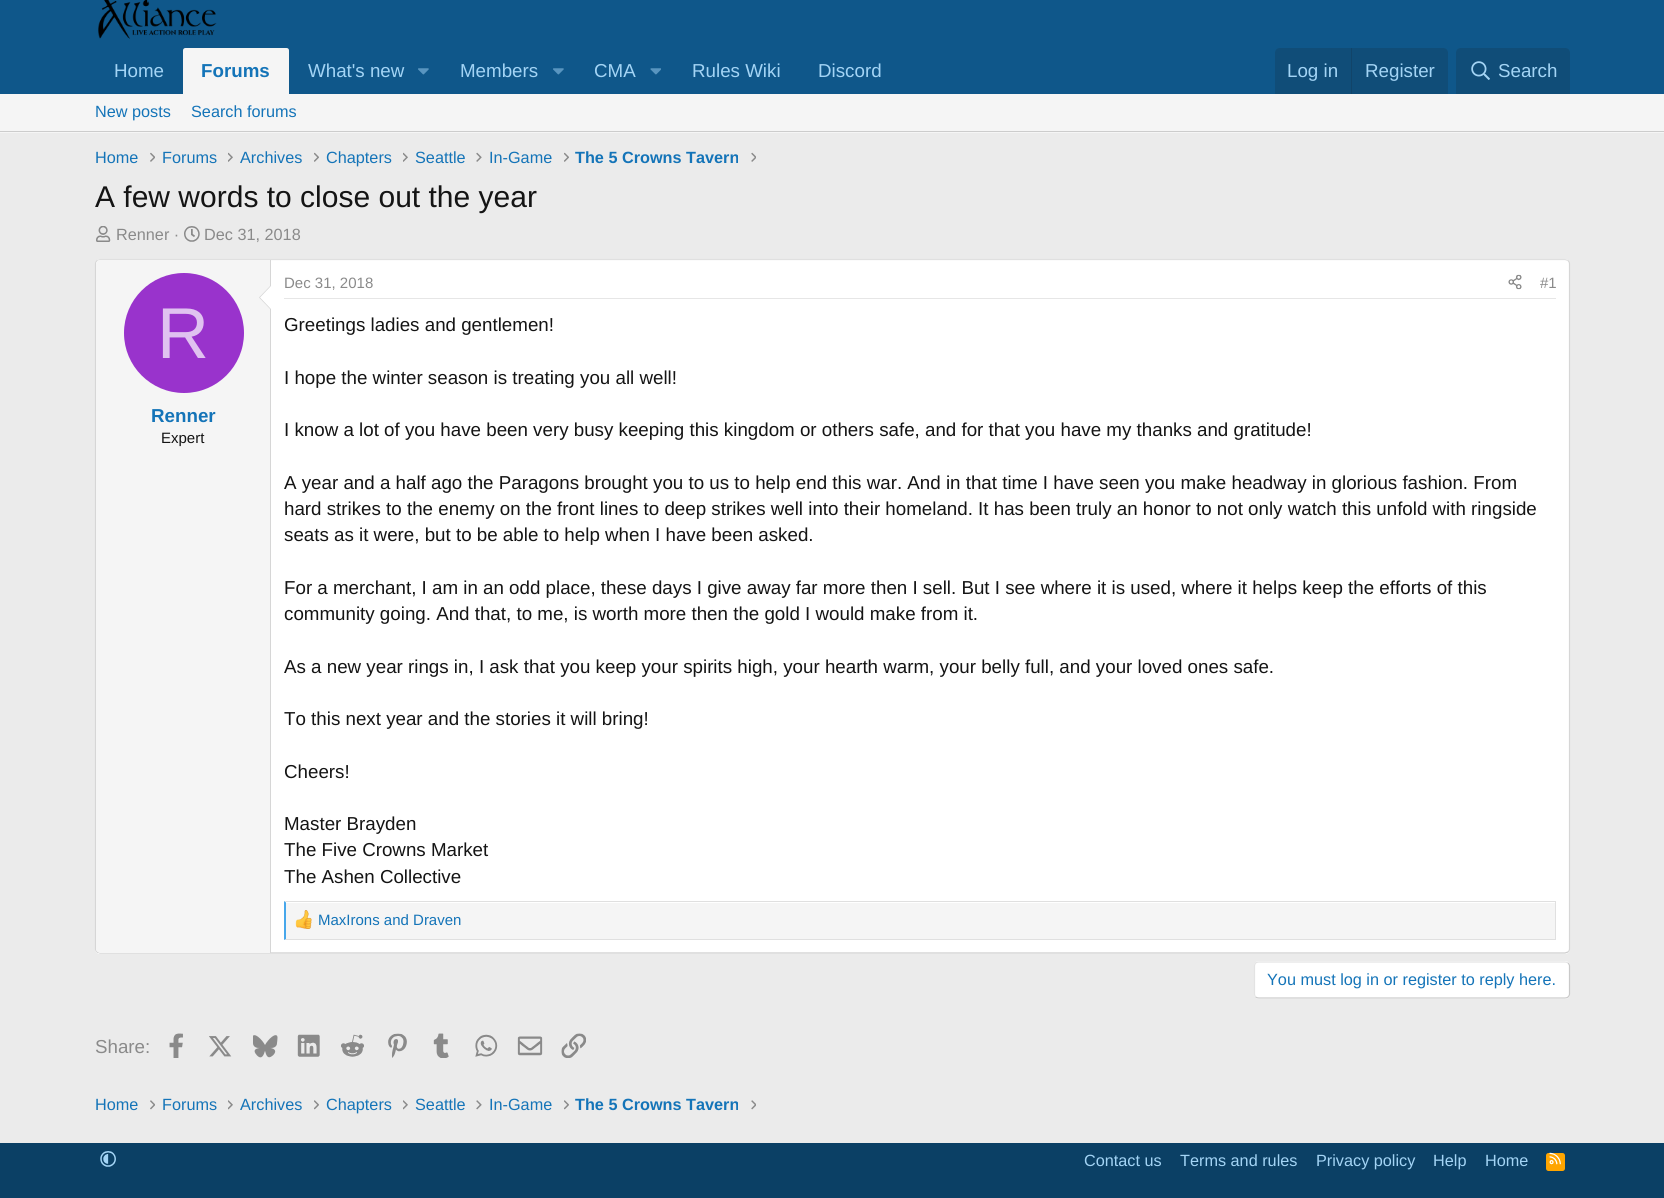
import math
import cairocffi as cairo

surface = cairo.ImageSurface(cairo.FORMAT_RGB24, 1664, 1198)
ctx = cairo.Context(surface)
options = cairo.FontOptions()
options.set_hint_metrics(cairo.HINT_METRICS_OFF)
options.set_hint_style(cairo.HINT_STYLE_NONE)
ctx.set_font_options(options)
ctx.set_miter_limit(4)


def rgb(r, g, b):
    ctx.set_source_rgb(r / 255, g / 255, b / 255)


def face(family, size, italic, bold):
    ctx.select_font_face(family, cairo.FONT_SLANT_ITALIC if italic else cairo.FONT_SLANT_NORMAL, cairo.FONT_WEIGHT_BOLD if bold else cairo.FONT_WEIGHT_NORMAL)
    ctx.set_font_size(size)


def label(x, y, s):
    ctx.move_to(x, y)
    ctx.show_text(s)


def rect(x, y, w, h):
    ctx.rectangle(x, y, w, h)
    ctx.fill()


def rrect(x, y, w, h, r):
    ctx.new_sub_path()
    for i, (u, v) in enumerate([(x + w - r, y + h - r), (x + r, y + h - r), (x + r, y + r), (x + w - r, y + r)]):
        ctx.arc(u, v, r, i * math.pi / 2, (i + 1) * math.pi / 2)
    ctx.close_path()


def image(path, x, y, w, h):
    ctx.save()
    ctx.set_source_surface(cairo.ImageSurface.create_from_png(path), x, y)
    ctx.rectangle(x, y, w, h)
    ctx.fill()
    ctx.restore()


rgb(235, 235, 235)
ctx.paint()
rgb(15, 87, 138)
rect(0, 0, 1664, 94)
image('image0.png', 98, 0, 119, 39)
face('Liberation Sans', 18.75, 0, 0)
rgb(163, 212, 245)
label(114, 77, 'Home')
rgb(245, 245, 245)
ctx.new_path()
ctx.move_to(185.5, 48)
ctx.line_to(286.5, 48)
ctx.curve_to(288, 48, 289, 49, 289, 50.5)
ctx.line_to(289, 94)
ctx.line_to(183, 94)
ctx.line_to(183, 50.5)
ctx.curve_to(183, 49, 184, 48, 185.5, 48)
ctx.close_path()
ctx.fill()
face('Liberation Sans', 18.75, 0, 1)
rgb(20, 116, 184)
label(201, 77, 'Forums')
face('Liberation Sans', 18.75, 0, 0)
rgb(163, 212, 245)
label(308, 77, 'What\'s new')
image('image1.png', 418, 68, 11, 7)
label(460, 77, 'Members')
image('image1.png', 553, 68, 11, 7)
label(594, 77, 'CMA')
image('image2.png', 650, 68, 11, 7)
label(692, 77, 'Rules Wiki')
label(818, 77, 'Discord')
rgb(16, 77, 120)
ctx.new_path()
ctx.move_to(1280, 48)
ctx.line_to(1443, 48)
ctx.curve_to(1446, 48, 1448, 50, 1448, 53)
ctx.line_to(1448, 94)
ctx.line_to(1275, 94)
ctx.line_to(1275, 53)
ctx.curve_to(1275, 50, 1277, 48, 1280, 48)
ctx.close_path()
ctx.fill()
rgb(163, 212, 245)
label(1287, 77, 'Log in')
rgb(17, 68, 105)
rect(1351, 48, 1, 46)
rgb(163, 212, 245)
label(1365, 77, 'Register')
rgb(16, 77, 120)
ctx.new_path()
ctx.move_to(1461, 48)
ctx.line_to(1565, 48)
ctx.curve_to(1568, 48, 1570, 50, 1570, 53)
ctx.line_to(1570, 94)
ctx.line_to(1456, 94)
ctx.line_to(1456, 53)
ctx.curve_to(1456, 50, 1458, 48, 1461, 48)
ctx.close_path()
ctx.fill()
image('image3.png', 1471, 61, 19, 19)
rgb(163, 212, 245)
label(1498, 77, 'Search')
rgb(245, 245, 245)
rect(0, 94, 1664, 39)
rgb(204, 204, 204)
rect(0, 131, 1664, 1)
face('Liberation Sans', 16.25, 0, 0)
rgb(20, 116, 184)
label(95, 117, 'New posts')
label(191, 117, 'Search forums')
label(95, 163, 'Home')
image('image4.png', 150, 152, 5, 10)
label(162, 163, 'Forums')
image('image5.png', 228, 152, 5, 10)
label(240, 163, 'Archives')
image('image6.png', 314, 152, 5, 10)
label(326, 163, 'Chapters')
image('image5.png', 403, 152, 5, 10)
label(415, 163, 'Seattle')
image('image7.png', 476, 152, 6, 10)
label(489, 163, 'In-Game')
image('image6.png', 564, 152, 5, 10)
face('Liberation Sans', 16.25, 0, 1)
label(575, 163, 'The 5 Crowns Tavern')
image('image8.png', 751, 152, 5, 10)
face('Liberation Sans', 30, 0, 0)
rgb(20, 20, 20)
label(95, 207, 'A few words to close out the year')
image('image9.png', 96, 226, 15, 16)
face('Liberation Sans', 16.25, 0, 0)
rgb(138, 138, 138)
label(116, 240, 'Renner ·')
image('image10.png', 184, 226, 16, 16)
label(204, 240, 'Dec 31, 2018')
rgb(255, 255, 255)
rrect(95, 259, 1475, 695, 5)
ctx.fill()
ctx.new_path()
ctx.move_to(97, 260.5)
ctx.line_to(100, 259.5)
ctx.line_to(1565, 259.5)
ctx.line_to(1568, 260.5)
rgb(224, 224, 224)
ctx.set_line_width(1.2)
ctx.stroke()
ctx.new_path()
ctx.move_to(1568, 260.5)
ctx.curve_to(1569, 261.5, 1569.5, 262.5, 1569.5, 264)
ctx.line_to(1569.5, 949)
ctx.curve_to(1569.5, 950, 1569, 951, 1568, 952)
rgb(214, 214, 214)
ctx.stroke()
ctx.new_path()
ctx.move_to(1568, 952)
ctx.line_to(1565, 953)
ctx.line_to(100, 953)
ctx.line_to(97, 952)
rgb(204, 204, 204)
ctx.stroke()
ctx.new_path()
ctx.move_to(97, 952)
ctx.curve_to(96, 951, 95.5, 950, 95.5, 949)
ctx.line_to(95.5, 264)
ctx.curve_to(95.5, 262.5, 96, 261.5, 97, 260.5)
rgb(214, 214, 214)
ctx.stroke()
rgb(245, 245, 245)
ctx.new_path()
ctx.move_to(100, 260)
ctx.line_to(271, 260)
ctx.line_to(271, 953)
ctx.line_to(100, 953)
ctx.curve_to(98, 953, 96, 951, 96, 949)
ctx.line_to(96, 264)
ctx.curve_to(96, 262, 98, 260, 100, 260)
ctx.close_path()
ctx.fill()
rgb(214, 214, 214)
rect(270, 260, 1, 693)
ctx.new_path()
ctx.move_to(271, 285)
ctx.line_to(271, 310)
ctx.line_to(259, 297.5)
ctx.close_path()
ctx.fill()
rgb(255, 255, 255)
ctx.new_path()
ctx.move_to(271, 286)
ctx.line_to(271, 309)
ctx.line_to(260, 297.5)
ctx.close_path()
ctx.fill()
rgb(153, 51, 204)
ctx.arc(184, 333, 60, 0, 2 * math.pi)
ctx.fill()
face('Liberation Sans', 72, 0, 0)
rgb(224, 194, 240)
label(157, 358, 'R')
face('Liberation Sans', 18.75, 0, 1)
rgb(20, 116, 184)
label(151, 422, 'Renner')
face('Liberation Sans', 15, 0, 0)
rgb(20, 20, 20)
label(161, 443, 'Expert')
rgb(230, 230, 230)
rect(284, 298, 1272, 1)
rgb(138, 138, 138)
label(284, 288, 'Dec 31, 2018')
image('image11.png', 1508, 274, 14, 16)
label(1540, 288, '#1')
face('Liberation Sans', 18.75, 0, 0)
rgb(20, 20, 20)
label(284, 331, 'Greetings ladies and gentlemen!')
label(284, 384, 'I hope the winter season is treating you all well!')
label(284, 436, 'I know a lot of you have been very busy keeping this kingdom or others safe, and for that you have my thanks and gratitude!')
label(284, 489, 'A year and a half ago the Paragons brought you to us to help end this war. And in that time I have seen you make headway in glorious fashion. From')
label(284, 515, 'hard strikes to the enemy on the front lines to deep strikes well into their homeland. It has been truly an honor to not only watch this unfold with ringside')
label(284, 541, 'seats as it were, but to be able to help when I have been asked.')
label(284, 594, 'For a merchant, I am in an odd place, these days I give away far more then I sell. But I see where it is used, where it helps keep the efforts of this')
label(284, 620, 'community going. And that, to me, is worth more then the gold I would make from it.')
label(284, 673, 'As a new year rings in, I ask that you keep your spirits high, your hearth warm, your belly full, and your loved ones safe.')
label(284, 725, 'To this next year and the stories it will bring!')
label(284, 778, 'Cheers!')
label(284, 830, 'Master Brayden')
label(284, 856, 'The Five Crowns Market')
label(284, 883, 'The Ashen Collective')
rgb(245, 245, 245)
rect(286, 903, 1269, 36)
rgb(224, 224, 224)
ctx.new_path()
ctx.move_to(284, 901)
ctx.line_to(1556, 901)
ctx.line_to(1555, 902)
ctx.line_to(286, 902)
ctx.close_path()
ctx.fill()
rect(1555, 901, 1, 39)
ctx.new_path()
ctx.move_to(1556, 940)
ctx.line_to(284, 940)
ctx.line_to(286, 939)
ctx.line_to(1555, 939)
ctx.close_path()
ctx.fill()
rgb(71, 167, 235)
ctx.new_path()
ctx.move_to(284, 940)
ctx.line_to(284, 901)
ctx.line_to(286, 902.5)
ctx.line_to(286, 939)
ctx.close_path()
ctx.fill()
image('image12.png', 295, 910, 17, 19)
face('Liberation Sans', 15, 0, 0)
rgb(20, 116, 184)
label(318, 925, 'MaxIrons and Draven')
rgb(255, 255, 255)
rrect(1254, 961, 316, 38, 5)
ctx.fill()
ctx.new_path()
ctx.move_to(1568, 963)
ctx.curve_to(1569, 964, 1569.5, 965, 1569.5, 966)
ctx.line_to(1569.5, 994)
ctx.curve_to(1569.5, 995, 1569, 996, 1568, 997)
ctx.curve_to(1567.5, 997.5, 1566, 998, 1565, 998)
ctx.line_to(1259, 998)
ctx.curve_to(1257.5, 998, 1256.5, 997.5, 1255.5, 997)
rgb(201, 201, 201)
ctx.stroke()
ctx.new_path()
ctx.move_to(1255.5, 997)
ctx.curve_to(1255, 996, 1254.5, 995, 1254.5, 994)
ctx.line_to(1254.5, 966)
ctx.curve_to(1254.5, 965, 1255, 964, 1255.5, 963)
ctx.curve_to(1256.5, 962.5, 1257.5, 962, 1259, 962)
ctx.line_to(1565, 962)
ctx.curve_to(1566, 962, 1567.5, 962.5, 1568, 963)
rgb(227, 227, 227)
ctx.stroke()
face('Liberation Sans', 16.25, 0, 0)
rgb(20, 116, 184)
label(1267, 985, 'You must log in or register to reply here.')
face('Liberation Sans', 18.75, 0, 0)
rgb(138, 138, 138)
label(95, 1053, 'Share:')
image('image13.png', 169, 1033, 14, 25)
image('image14.png', 209, 1036, 23, 21)
image('image15.png', 253, 1035, 25, 23)
image('image16.png', 297, 1034, 23, 23)
image('image17.png', 341, 1034, 23, 23)
image('image18.png', 388, 1033, 19, 25)
image('image19.png', 433, 1033, 16, 25)
image('image20.png', 475, 1034, 23, 23)
image('image21.png', 517, 1036, 26, 20)
image('image22.png', 561, 1033, 25, 25)
face('Liberation Sans', 16.25, 0, 0)
rgb(20, 116, 184)
label(95, 1110, 'Home')
image('image23.png', 150, 1100, 5, 10)
label(162, 1110, 'Forums')
image('image24.png', 228, 1100, 5, 10)
label(240, 1110, 'Archives')
image('image25.png', 314, 1100, 5, 10)
label(326, 1110, 'Chapters')
image('image24.png', 403, 1100, 5, 10)
label(415, 1110, 'Seattle')
image('image26.png', 476, 1100, 6, 10)
label(489, 1110, 'In-Game')
image('image25.png', 564, 1100, 5, 10)
face('Liberation Sans', 16.25, 0, 1)
label(575, 1110, 'The 5 Crowns Tavern')
image('image27.png', 751, 1100, 5, 10)
rgb(11, 64, 101)
rect(0, 1143, 1664, 55)
image('image28.png', 100, 1151, 16, 16)
face('Liberation Sans', 16.25, 0, 0)
rgb(163, 212, 245)
label(1084, 1166, 'Contact us')
label(1180, 1166, 'Terms and rules')
label(1316, 1166, 'Privacy policy')
label(1433, 1166, 'Help')
label(1485, 1166, 'Home')
rgb(255, 165, 0)
rrect(1546, 1153, 19, 18, 2.5)
ctx.fill()
image('image29.png', 1549, 1152, 12, 13)
surface.write_to_png('render.png')
